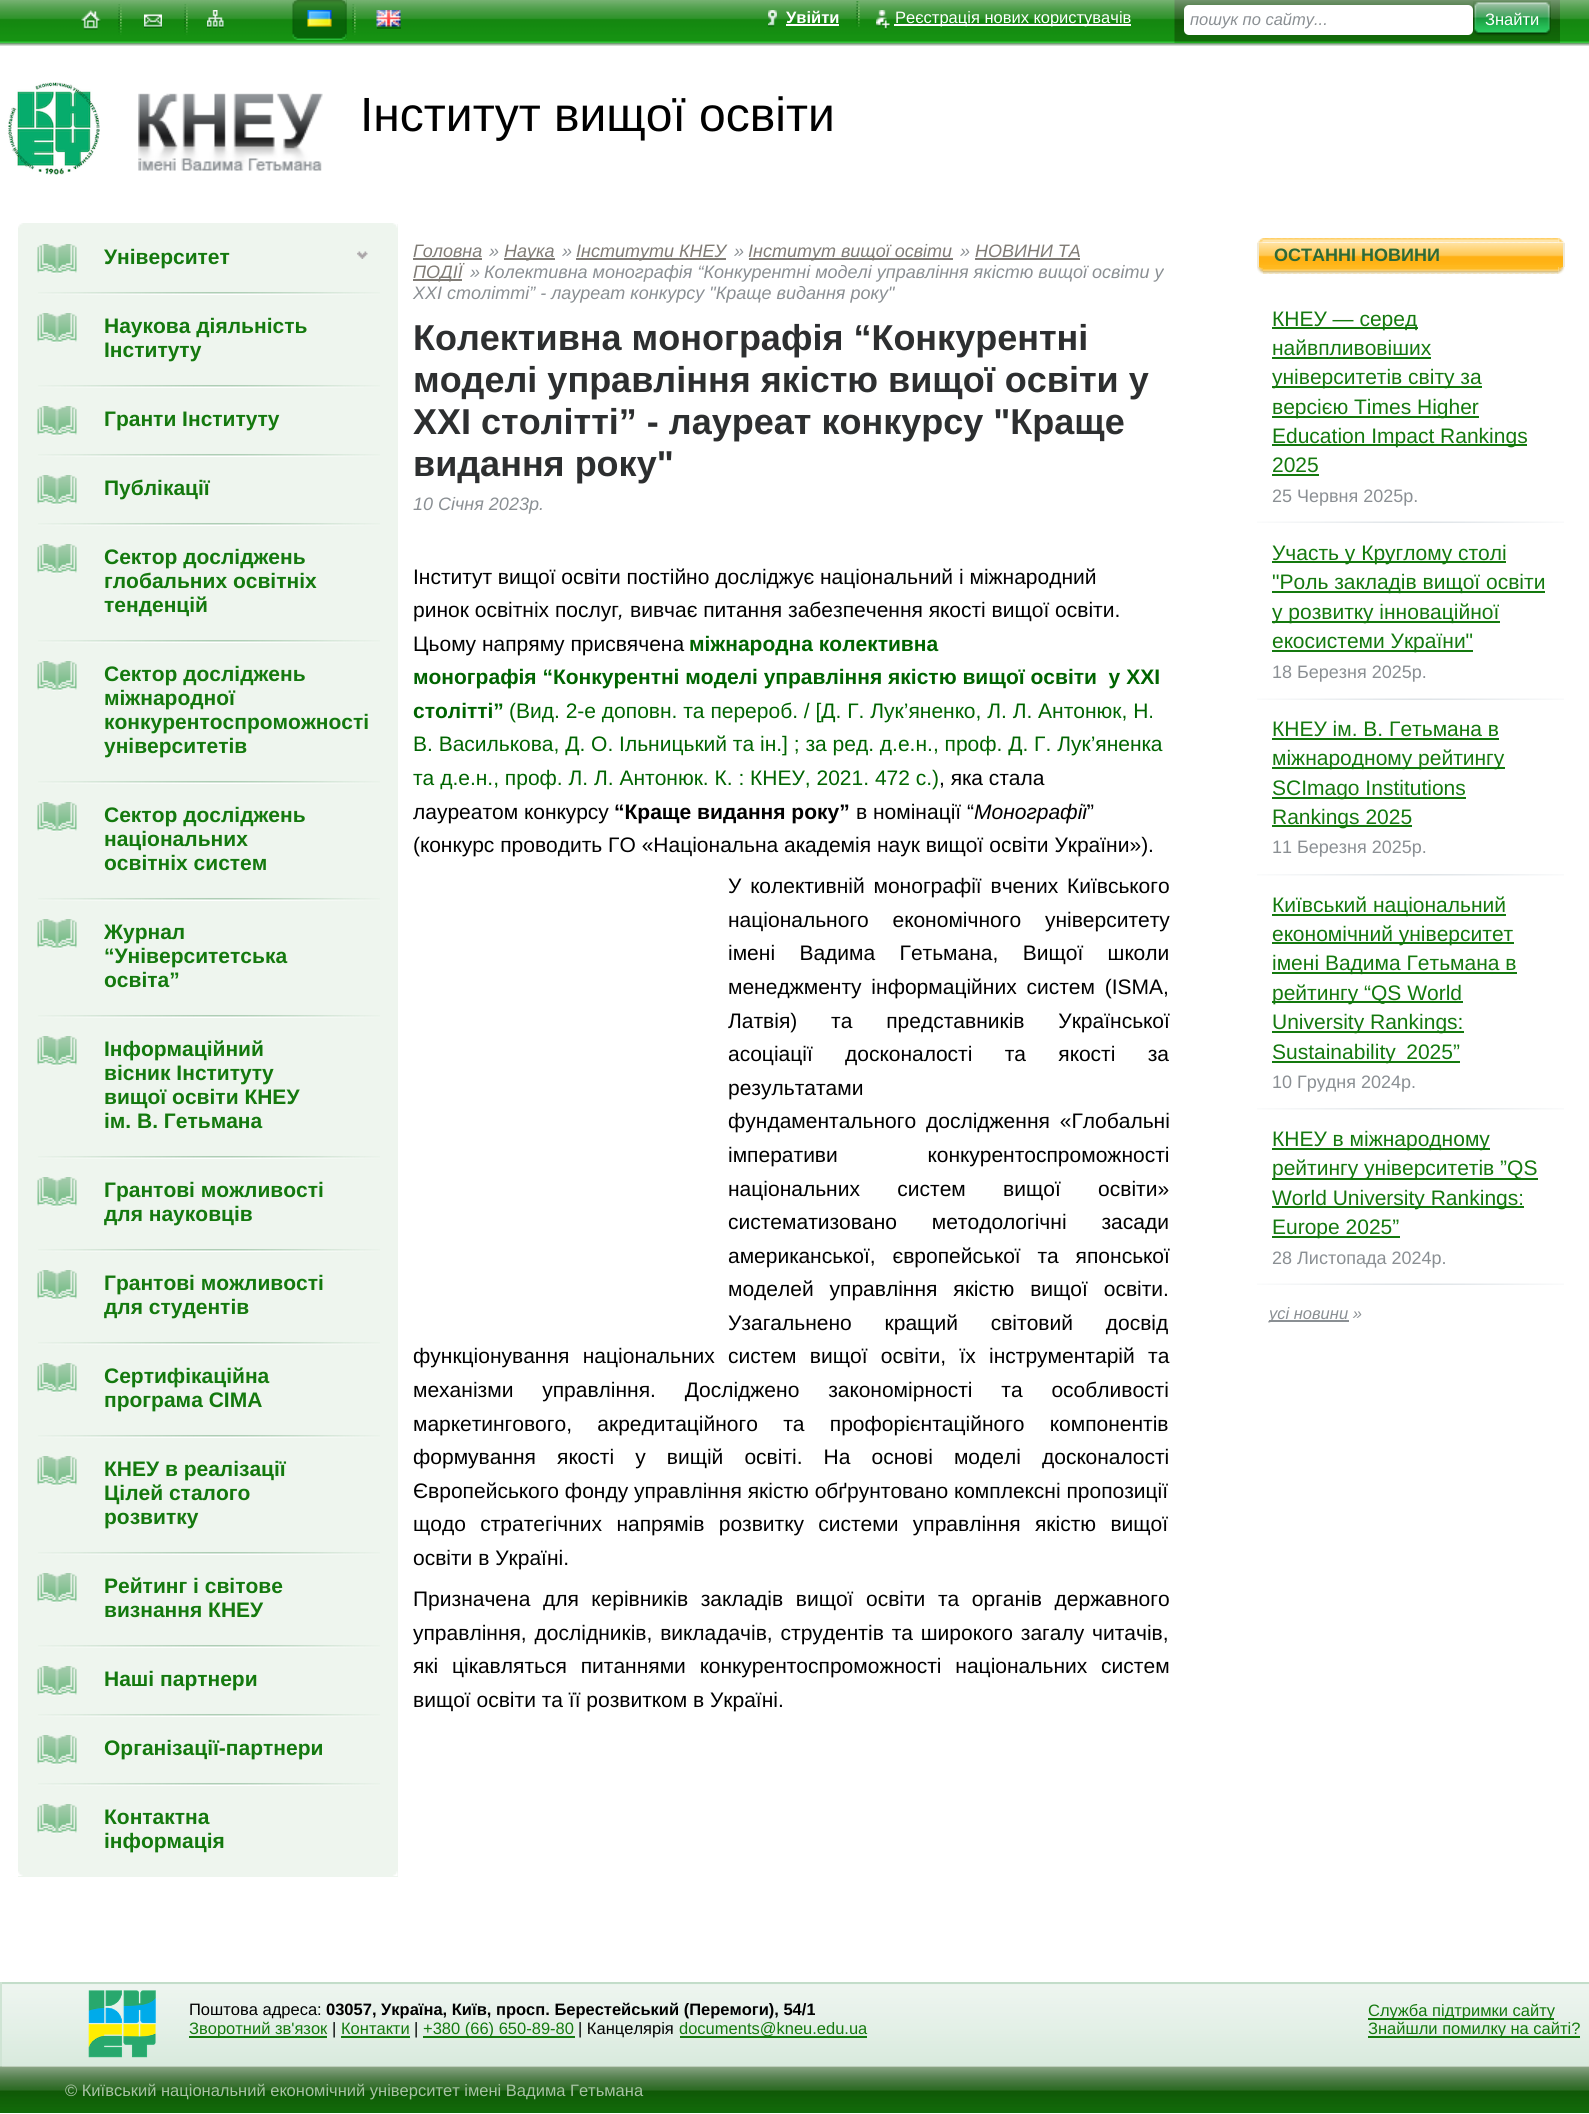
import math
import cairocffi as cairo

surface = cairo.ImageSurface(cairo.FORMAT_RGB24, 1589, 2114)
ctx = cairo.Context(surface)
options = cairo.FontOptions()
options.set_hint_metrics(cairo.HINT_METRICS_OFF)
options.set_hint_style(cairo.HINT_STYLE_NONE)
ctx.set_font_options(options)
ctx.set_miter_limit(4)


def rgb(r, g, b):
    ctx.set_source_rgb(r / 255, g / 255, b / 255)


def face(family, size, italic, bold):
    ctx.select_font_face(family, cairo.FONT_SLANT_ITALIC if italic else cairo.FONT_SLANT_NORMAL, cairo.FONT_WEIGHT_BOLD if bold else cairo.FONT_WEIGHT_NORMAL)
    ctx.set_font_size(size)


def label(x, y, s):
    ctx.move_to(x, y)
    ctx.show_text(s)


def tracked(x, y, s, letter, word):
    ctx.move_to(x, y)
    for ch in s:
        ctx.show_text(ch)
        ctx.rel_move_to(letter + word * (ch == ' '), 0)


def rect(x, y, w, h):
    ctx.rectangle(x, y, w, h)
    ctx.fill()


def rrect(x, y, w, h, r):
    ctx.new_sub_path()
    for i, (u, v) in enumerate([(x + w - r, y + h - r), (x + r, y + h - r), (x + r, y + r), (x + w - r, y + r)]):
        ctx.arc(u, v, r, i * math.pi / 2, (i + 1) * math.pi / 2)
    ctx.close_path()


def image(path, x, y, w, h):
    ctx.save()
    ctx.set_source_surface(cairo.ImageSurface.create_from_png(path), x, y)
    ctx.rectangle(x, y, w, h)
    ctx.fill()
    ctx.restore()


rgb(255, 255, 255)
ctx.paint()
image('image0.png', 0, 0, 1589, 46)
image('image1.png', 81, 10, 20, 20)
image('image2.png', 118, 4, 4, 31)
image('image3.png', 144, 14, 18, 14)
image('image2.png', 184, 4, 4, 31)
image('image4.png', 207, 10, 17, 18)
image('image5.png', 292, 0, 55, 40)
image('image6.png', 341, 0, 6, 40)
image('image7.png', 307, 10, 25, 17)
image('image8.png', 352, 4, 4, 31)
image('image9.png', 376, 10, 25, 17)
rgb(10, 104, 9)
rect(377, 27, 24, 2)
image('image10.png', 768, 10, 9, 17)
face('Liberation Sans', 16.5, 0, 1)
rgb(255, 255, 255)
label(786, 23, 'Увійти')
rect(786, 24, 53, 2)
image('image11.png', 856, 1, 4, 26)
image('image12.png', 876, 10, 14, 20)
rect(894, 24, 237, 2)
face('Liberation Sans', 16.5, 0, 0)
label(895, 23, 'Реєстрація нових користувачів')
image('image13.png', 1174, 0, 386, 43)
rrect(1184, 5, 289, 30, 5)
ctx.fill()
face('Liberation Sans', 16.5, 1, 0)
rgb(138, 143, 147)
label(1190, 25, 'пошук по сайту...')
image('image14.png', 1473, 1, 78, 35)
face('Liberation Sans', 16.5, 0, 0)
rgb(255, 255, 255)
label(1485, 25, 'Знайти')
image('image15.png', 8, 82, 92, 93)
image('image16.png', 138, 93, 185, 78)
face('Liberation Sans', 48, 0, 0)
rgb(0, 0, 0)
label(360, 131, 'Інститут вищої освіти')
rgb(238, 245, 238)
rect(18, 224, 380, 1653)
image('image17.png', 18, 223, 380, 5)
image('image18.png', 18, 1871, 380, 5)
image('image19.png', 37, 244, 40, 30)
face('Liberation Sans', 21, 0, 1)
rgb(20, 121, 14)
label(104, 264, 'Університет')
image('image20.png', 357, 251, 11, 8)
image('image21.png', 38, 292, 342, 3)
image('image19.png', 37, 313, 40, 30)
label(104, 333, 'Наукова діяльність')
label(104, 357, 'Інституту')
image('image21.png', 38, 385, 342, 3)
image('image19.png', 37, 406, 40, 30)
label(104, 426, 'Гранти Інституту')
image('image21.png', 38, 454, 342, 3)
image('image19.png', 37, 475, 40, 30)
label(104, 495, 'Публікації')
image('image21.png', 38, 523, 342, 3)
image('image19.png', 37, 544, 40, 30)
label(104, 564, 'Сектор досліджень')
label(104, 588, 'глобальних освітніх')
label(104, 612, 'тенденцій')
image('image21.png', 38, 640, 342, 3)
image('image19.png', 37, 661, 40, 30)
label(104, 681, 'Сектор досліджень')
label(104, 705, 'міжнародної')
label(104, 729, 'конкурентоспроможності')
label(104, 753, 'університетів')
image('image21.png', 38, 781, 342, 3)
image('image19.png', 37, 802, 40, 30)
label(104, 822, 'Сектор досліджень')
label(104, 846, 'національних')
label(104, 870, 'освітніх систем')
image('image21.png', 38, 898, 342, 3)
image('image19.png', 37, 919, 40, 30)
label(104, 939, 'Журнал')
label(104, 963, '“Університетська')
label(104, 987, 'освіта”')
image('image21.png', 38, 1015, 342, 3)
image('image19.png', 37, 1036, 40, 30)
label(104, 1056, 'Інформаційний')
label(104, 1080, 'вісник Інституту')
label(104, 1104, 'вищої освіти КНЕУ')
label(104, 1128, 'ім. В. Гетьмана')
image('image21.png', 38, 1156, 342, 3)
image('image19.png', 37, 1177, 40, 30)
label(104, 1197, 'Грантові можливості')
label(104, 1221, 'для науковців')
image('image21.png', 38, 1249, 342, 3)
image('image19.png', 37, 1270, 40, 30)
label(104, 1290, 'Грантові можливості')
label(104, 1314, 'для студентів')
image('image21.png', 38, 1342, 342, 3)
image('image19.png', 37, 1363, 40, 30)
label(104, 1383, 'Сертифікаційна')
label(104, 1407, 'програма CIMA')
image('image21.png', 38, 1435, 342, 3)
image('image19.png', 37, 1456, 40, 30)
label(104, 1476, 'КНЕУ в реалізації')
label(104, 1500, 'Цілей сталого')
label(104, 1524, 'розвитку')
image('image21.png', 38, 1552, 342, 3)
image('image19.png', 37, 1573, 40, 30)
label(104, 1593, 'Рейтинг і світове')
label(104, 1617, 'визнання КНЕУ')
image('image21.png', 38, 1645, 342, 3)
image('image19.png', 37, 1666, 40, 30)
label(104, 1686, 'Наші партнери')
image('image21.png', 38, 1714, 342, 3)
image('image19.png', 37, 1735, 40, 30)
label(104, 1755, 'Організації-партнери')
image('image21.png', 38, 1783, 342, 3)
image('image19.png', 37, 1804, 40, 30)
label(104, 1824, 'Контактна')
label(104, 1848, 'інформація')
face('Liberation Sans', 18, 1, 0)
rgb(128, 124, 118)
label(413, 257, 'Головна')
rect(413, 258, 69, 2)
rgb(138, 143, 147)
label(489, 257, '»')
rgb(128, 124, 118)
rect(504, 258, 51, 2)
label(504, 257, 'Наука')
rgb(138, 143, 147)
label(562, 257, '»')
rgb(128, 124, 118)
rect(576, 258, 150, 2)
label(576, 257, 'Інститути КНЕУ')
rgb(138, 143, 147)
label(734, 257, '»')
rgb(128, 124, 118)
rect(749, 258, 204, 2)
label(748, 257, 'Інститут вищої освіти')
rgb(138, 143, 147)
label(960, 257, '»')
rgb(128, 124, 118)
label(975, 257, 'НОВИНИ ТА')
rect(975, 258, 105, 2)
rect(413, 279, 49, 2)
label(413, 278, 'ПОДІЇ')
rgb(138, 143, 147)
label(470, 278, '»')
label(484, 278, 'Колективна монографія “Конкурентні моделі управління якістю вищої освіти у')
label(413, 299, 'ХХІ столітті” - лауреат конкурсу "Краще видання року"')
face('Liberation Sans', 36, 0, 1)
rgb(45, 47, 48)
label(413, 350, 'Колективна монографія “Конкурентні')
label(413, 392, 'моделі управління якістю вищої освіти у')
label(413, 434, 'ХХІ столітті” - лауреат конкурсу "Краще')
label(413, 476, 'видання року"')
face('Liberation Sans', 18, 1, 0)
rgb(138, 143, 147)
label(413, 510, '10 Січня 2023р.')
face('Liberation Sans', 21, 0, 0)
rgb(0, 0, 0)
label(413, 584, 'Інститут вищої освіти постійно досліджує національний і міжнародний')
label(413, 617, 'ринок освітніх послуг')
face('Liberation Sans', 21, 1, 0)
label(618, 617, ',')
face('Liberation Sans', 21, 0, 0)
label(630, 617, 'вивчає питання забезпечення якості вищої освіти.')
label(413, 651, 'Цьому напряму присвячена')
face('Liberation Sans', 21, 0, 1)
rgb(0, 100, 0)
label(689, 651, 'міжнародна колективна')
label(413, 684, 'монографія “Конкурентні моделі управління якістю вищої освіти  у ХХІ')
label(413, 718, 'столітті”')
face('Liberation Sans', 21, 0, 0)
label(509, 718, '(Вид. 2-е доповн. та перероб. / [Д. Г. Лук’яненко, Л. Л. Антонюк, Н.')
label(413, 751, 'В. Василькова, Д. О. Ільницький та ін.] ; за ред. д.е.н., проф. Д. Г. Лук’яненка')
label(413, 785, 'та д.е.н., проф. Л. Л. Антонюк. К. : КНЕУ, 2021. 472 с.)')
rgb(0, 0, 0)
label(939, 785, ', яка стала')
label(413, 819, 'лауреатом конкурсу')
face('Liberation Sans', 21, 0, 1)
label(614, 819, '“Краще видання року”')
face('Liberation Sans', 21, 0, 0)
label(856, 819, 'в номінації “')
face('Liberation Sans', 21, 1, 0)
label(974, 819, 'Монографії')
face('Liberation Sans', 21, 0, 0)
label(1087, 819, '”')
label(413, 852, '(конкурс проводить ГО «Національна академія наук вищої освіти України»).')
tracked(728, 893, 'У колективній монографії вчених Київського', 0, 3)
tracked(728, 927, 'національного економічного університету', 0, 18)
tracked(728, 960, 'імені Вадима Гетьмана, Вищої школи', 0, 18.5)
tracked(728, 994, 'менеджменту інформаційних систем (ISMA,', 0, 4)
tracked(728, 1028, 'Латвія) та представників Української', 0, 28)
tracked(728, 1061, 'асоціації досконалості та якості за', 0, 26.5)
label(728, 1095, 'результатами')
tracked(728, 1128, 'фундаментального дослідження «Глобальні', 0, 4)
tracked(728, 1162, 'імперативи конкурентоспроможності', 0, 84)
tracked(728, 1196, 'національних систем вищої освіти»', 0, 31.5)
tracked(728, 1229, 'систематизовано методологічні засади', 0, 29)
tracked(728, 1263, 'американської, європейської та японської', 0, 11)
tracked(728, 1296, 'моделей управління якістю вищої освіти.', 0, 10)
tracked(728, 1330, 'Узагальнено кращий світовий досвід', 0, 27)
tracked(413, 1363, 'функціонування національних систем вищої освіти, їх інструментарій та', 0, 7.5)
tracked(413, 1397, 'механізми управління. Досліджено закономірності та особливості', 0, 23)
tracked(413, 1431, 'маркетингового, акредитаційного та профорієнтаційного компонентів', 0, 19.5)
tracked(413, 1464, 'формування якості у вищій освіті. На основі моделі досконалості', 0, 15.25)
label(413, 1498, 'Європейського фонду управління якістю обґрунтовано комплексні пропозиції')
tracked(413, 1531, 'щодо стратегічних напрямів розвитку системи управління якістю вищої', 0, 8.5)
label(413, 1565, 'освіти в Україні.')
tracked(413, 1606, 'Призначена для керівників закладів вищої освіти та органів державного', 0, 6.75)
tracked(413, 1640, 'управління, дослідників, викладачів, стpудентів та широкого загалу читачів,', 0, 2)
tracked(413, 1673, 'які цікавляться питаннями конкурентоспроможності національних систем', 0, 8)
label(413, 1707, 'вищої освіти та її розвитком в Україні.')
image('image22.png', 1258, 238, 5, 5)
image('image23.png', 1558, 238, 6, 5)
image('image24.png', 1263, 238, 296, 5)
rgb(255, 184, 29)
rect(1259, 265, 304, 2)
image('image25.png', 1257, 242, 308, 23)
rgb(240, 233, 214)
rect(1563, 243, 2, 24)
rect(1257, 243, 2, 24)
face('Liberation Sans', 18, 0, 1)
rgb(45, 106, 55)
label(1274, 261, 'ОСТАННІ НОВИНИ')
image('image26.png', 1257, 267, 6, 7)
image('image27.png', 1558, 267, 7, 7)
image('image28.png', 1263, 267, 296, 7)
image('image29.png', 1257, 521, 307, 2)
rgb(20, 121, 14)
rect(1272, 327, 146, 2)
face('Liberation Sans', 21, 0, 0)
label(1272, 326, 'КНЕУ — серед')
label(1272, 355, 'найвпливовіших')
rect(1272, 357, 159, 2)
rect(1272, 386, 210, 2)
label(1272, 384, 'університетів світу за')
rect(1272, 416, 207, 2)
label(1272, 414, 'версією Times Higher')
rect(1272, 444, 255, 2)
label(1272, 443, 'Education Impact Rankings')
label(1272, 472, '2025')
rect(1272, 474, 47, 2)
face('Liberation Sans', 18, 0, 0)
rgb(138, 143, 147)
label(1272, 502, '25 Червня 2025р.')
image('image29.png', 1257, 698, 307, 2)
rgb(20, 121, 14)
rect(1272, 561, 234, 2)
face('Liberation Sans', 21, 0, 0)
label(1272, 560, 'Участь у Круглому столі')
rect(1272, 591, 273, 2)
label(1272, 589, '"Роль закладів вищої освіти')
rect(1272, 621, 228, 2)
label(1272, 619, 'у розвитку інноваційної')
rect(1272, 650, 201, 2)
label(1272, 648, 'екосистеми України"')
face('Liberation Sans', 18, 0, 0)
rgb(138, 143, 147)
label(1272, 678, '18 Березня 2025р.')
image('image30.png', 1257, 874, 307, 2)
face('Liberation Sans', 21, 0, 0)
rgb(20, 121, 14)
label(1272, 736, 'КНЕУ ім. В. Гетьмана в')
rect(1272, 738, 227, 2)
rect(1272, 767, 233, 2)
label(1272, 765, 'міжнародному рейтингу')
rect(1272, 797, 194, 2)
label(1272, 795, 'SCImago Institutions')
rect(1272, 825, 140, 2)
label(1272, 824, 'Rankings 2025')
face('Liberation Sans', 18, 0, 0)
rgb(138, 143, 147)
label(1272, 853, '11 Березня 2025р.')
image('image30.png', 1257, 1108, 307, 2)
rgb(20, 121, 14)
rect(1272, 914, 234, 2)
face('Liberation Sans', 21, 0, 0)
label(1272, 912, 'Київський національний')
rect(1272, 942, 242, 2)
label(1272, 941, 'економічний університет')
rect(1272, 972, 245, 2)
label(1272, 970, 'імені Вадима Гетьмана в')
rect(1272, 1001, 191, 2)
label(1272, 1000, 'рейтингу “QS World')
rect(1272, 1031, 192, 2)
label(1272, 1029, 'University Rankings:')
rect(1272, 1061, 188, 2)
label(1272, 1059, 'Sustainability 2025”')
face('Liberation Sans', 18, 0, 0)
rgb(138, 143, 147)
label(1272, 1088, '10 Грудня 2024р.')
image('image29.png', 1257, 1283, 307, 2)
rgb(20, 121, 14)
rect(1272, 1148, 218, 2)
face('Liberation Sans', 21, 0, 0)
label(1272, 1146, 'КНЕУ в міжнародному')
rect(1272, 1178, 266, 2)
label(1272, 1175, 'рейтингу університетів ”QS')
rect(1272, 1206, 252, 2)
label(1272, 1205, 'World University Rankings:')
rect(1272, 1236, 128, 2)
label(1272, 1234, 'Europe 2025”')
face('Liberation Sans', 18, 0, 0)
rgb(138, 143, 147)
label(1272, 1264, '28 Листопада 2024р.')
rect(1269, 1320, 80, 2)
face('Liberation Sans', 16.5, 1, 0)
label(1269, 1319, 'усі новини »')
image('image31.png', 2, 1984, 1587, 82)
rgb(195, 221, 202)
rect(0, 1982, 1589, 2)
rgb(242, 248, 243)
rect(0, 2066, 1589, 1)
rgb(207, 228, 212)
rect(0, 1982, 2, 85)
image('image32.png', 88, 1990, 68, 68)
face('Liberation Sans', 16.5, 0, 0)
rgb(0, 0, 0)
label(189, 2015, 'Поштова адреса:')
face('Liberation Sans', 16.5, 0, 1)
label(326, 2015, '03057, Україна, Київ, просп. Берестейський (Перемоги), 54/1')
rgb(20, 121, 14)
rect(189, 2036, 138, 2)
face('Liberation Sans', 16.5, 0, 0)
label(189, 2034, 'Зворотний зв\'язок')
rgb(0, 0, 0)
label(332, 2034, '|')
rgb(20, 121, 14)
label(341, 2034, 'Контакти')
rect(341, 2036, 69, 2)
rgb(0, 0, 0)
label(414, 2034, '|')
rgb(20, 121, 14)
rect(423, 2036, 152, 2)
label(423, 2034, '+380 (66) 650-89-80')
rgb(0, 0, 0)
label(578, 2034, '| Канцелярія')
rgb(20, 121, 14)
rect(680, 2036, 187, 2)
label(679, 2034, 'documents@kneu.edu.ua')
rect(1368, 2018, 186, 2)
label(1368, 2016, 'Служба підтримки сайту')
rect(1368, 2036, 212, 2)
label(1368, 2034, 'Знайшли помилку на сайті?')
image('image33.png', 0, 2066, 1589, 47)
rgb(169, 194, 165)
label(65, 2096, '© Київський національний економічний університет імені Вадима Гетьмана')
surface.write_to_png('render.png')
